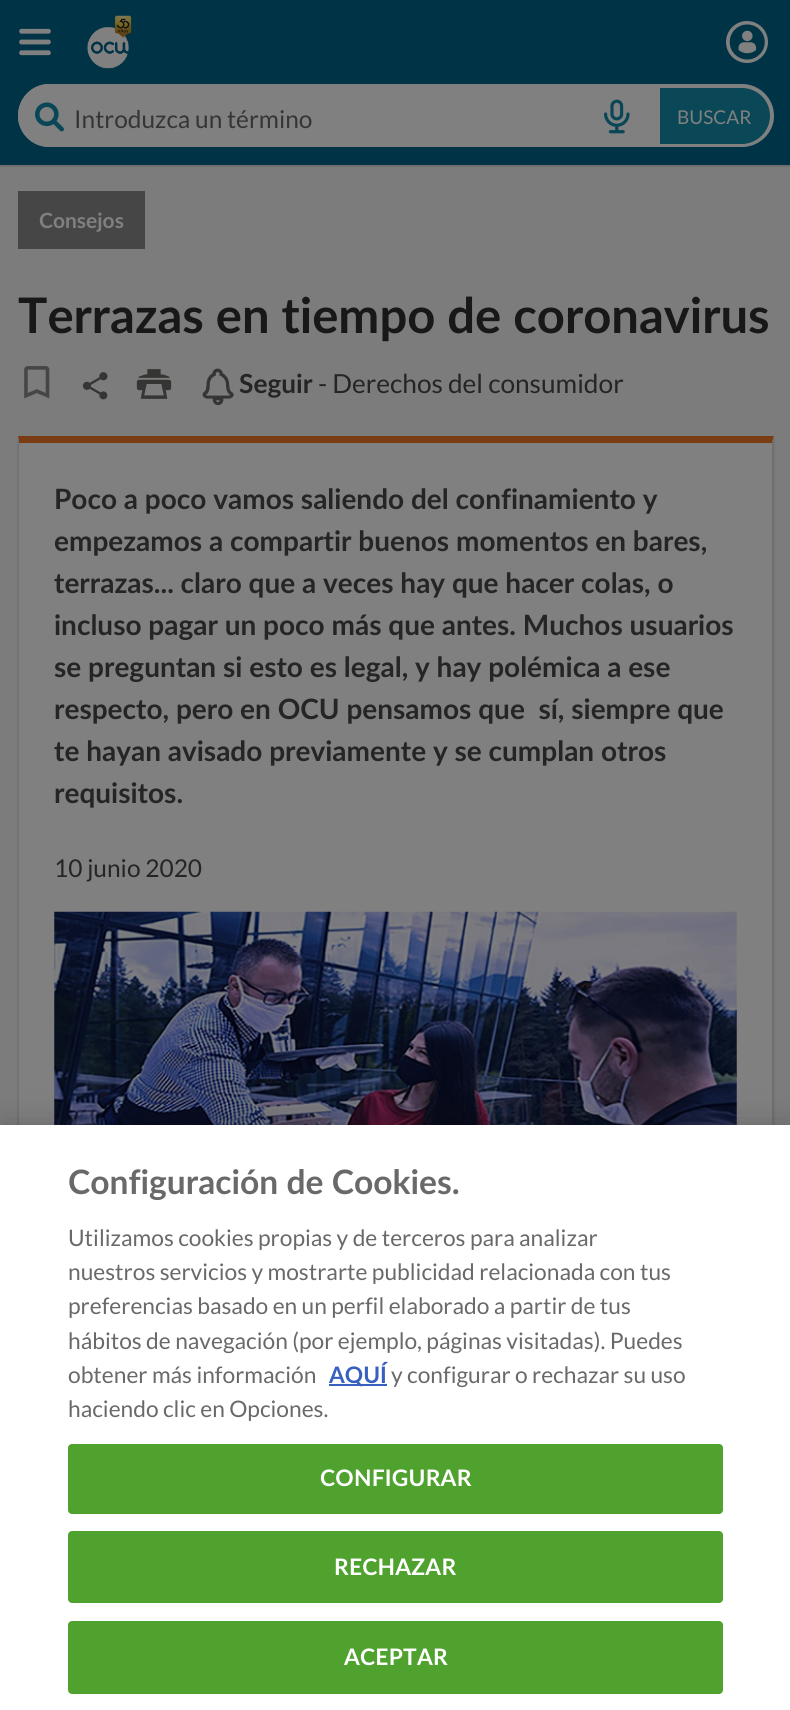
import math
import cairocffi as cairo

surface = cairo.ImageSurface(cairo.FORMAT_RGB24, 790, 1710)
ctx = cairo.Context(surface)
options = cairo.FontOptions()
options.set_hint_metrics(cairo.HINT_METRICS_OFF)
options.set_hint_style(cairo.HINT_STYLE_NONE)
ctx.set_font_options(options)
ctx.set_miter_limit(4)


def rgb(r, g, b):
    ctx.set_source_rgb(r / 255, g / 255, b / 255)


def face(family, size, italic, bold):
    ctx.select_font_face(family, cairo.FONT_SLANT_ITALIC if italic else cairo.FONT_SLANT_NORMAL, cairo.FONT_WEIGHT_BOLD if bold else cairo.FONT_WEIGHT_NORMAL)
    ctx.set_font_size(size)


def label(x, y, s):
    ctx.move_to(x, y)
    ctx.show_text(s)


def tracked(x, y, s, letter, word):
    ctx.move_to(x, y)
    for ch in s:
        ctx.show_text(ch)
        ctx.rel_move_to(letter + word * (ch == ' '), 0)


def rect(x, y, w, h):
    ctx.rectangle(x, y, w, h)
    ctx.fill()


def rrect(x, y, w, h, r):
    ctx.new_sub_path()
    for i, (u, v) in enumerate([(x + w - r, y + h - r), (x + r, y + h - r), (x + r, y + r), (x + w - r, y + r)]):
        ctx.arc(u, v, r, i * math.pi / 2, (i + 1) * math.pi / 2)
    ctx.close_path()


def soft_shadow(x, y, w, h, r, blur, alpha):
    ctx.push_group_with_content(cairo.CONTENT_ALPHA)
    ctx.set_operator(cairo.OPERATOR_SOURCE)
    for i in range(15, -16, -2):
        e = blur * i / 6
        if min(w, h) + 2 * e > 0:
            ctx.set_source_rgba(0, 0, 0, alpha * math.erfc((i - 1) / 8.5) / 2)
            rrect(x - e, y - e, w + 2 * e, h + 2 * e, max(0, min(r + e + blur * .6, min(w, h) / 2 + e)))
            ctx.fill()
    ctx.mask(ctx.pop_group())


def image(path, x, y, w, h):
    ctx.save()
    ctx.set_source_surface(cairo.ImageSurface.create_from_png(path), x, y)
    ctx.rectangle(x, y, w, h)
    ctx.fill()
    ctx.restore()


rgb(125, 124, 124)
ctx.paint()
rgb(0, 51, 69)
rect(0, 0, 790, 165)
rgb(111, 111, 111)
rect(0, 165, 790, 2)
image('image0.png', 19, 28, 32, 28)
image('image1.png', 87, 15, 45, 54)
ctx.arc(747, 42, 19, 0, 2 * math.pi)
rgb(128, 128, 128)
ctx.set_line_width(4)
ctx.stroke()
ctx.arc(747.5, 42.5, 17.5, 0, 2 * math.pi)
ctx.fill()
image('image2.png', 729, 24, 36, 36)
ctx.new_path()
ctx.move_to(49.5, 84)
ctx.line_to(660, 84)
ctx.line_to(660, 147)
ctx.line_to(49.5, 147)
ctx.curve_to(32, 147, 18, 133, 18, 115.5)
ctx.curve_to(18, 98, 32, 84, 49.5, 84)
ctx.close_path()
ctx.fill()
ctx.set_fill_rule(cairo.FILL_RULE_EVEN_ODD)
ctx.new_path()
ctx.move_to(49, 84)
ctx.line_to(660, 84)
ctx.line_to(660, 147)
ctx.line_to(49, 147)
ctx.curve_to(32, 147, 18, 133, 18, 116)
ctx.curve_to(18, 98, 32, 84, 49, 84)
ctx.close_path()
ctx.move_to(49, 88)
ctx.line_to(660, 88)
ctx.line_to(660, 144)
ctx.line_to(49, 144)
ctx.curve_to(34, 144, 21, 131, 21, 116)
ctx.curve_to(21, 100, 34, 88, 49, 88)
ctx.close_path()
ctx.fill()
image('image3.png', 35, 102, 29, 30)
face('Lato', 24.5, 0, 0)
rgb(53, 53, 53)
label(74, 128, 'Introduzca un término')
image('image4.png', 604, 99, 26, 35)
rgb(10, 71, 87)
ctx.new_path()
ctx.move_to(660, 84)
ctx.line_to(742.5, 84)
ctx.curve_to(760, 84, 774, 98, 774, 115.5)
ctx.curve_to(774, 133, 760, 147, 742.5, 147)
ctx.line_to(660, 147)
ctx.close_path()
ctx.fill()
rgb(128, 128, 128)
ctx.new_path()
ctx.move_to(660, 84)
ctx.line_to(742, 84)
ctx.curve_to(759, 84, 774, 98, 774, 116)
ctx.curve_to(774, 133, 759, 147, 742, 147)
ctx.line_to(660, 147)
ctx.close_path()
ctx.move_to(660, 88)
ctx.line_to(742, 88)
ctx.curve_to(757, 88, 770, 100, 770, 116)
ctx.curve_to(770, 131, 757, 144, 742, 144)
ctx.line_to(660, 144)
ctx.close_path()
ctx.fill()
face('Lato', 19, 0, 0)
label(677, 124, 'BUSCAR')
rgb(71, 70, 70)
rect(18, 191, 127, 58)
face('Lato', 21, 0, 1)
rgb(128, 128, 128)
label(39, 228, 'Consejos')
face('Lato', 49, 0, 1)
rgb(24, 24, 24)
label(18, 333, 'Terrazas en tiempo de coronavirus')
image('image5.png', 24, 366, 26, 33)
image('image6.png', 82, 372, 26, 28)
image('image7.png', 136, 369, 36, 30)
image('image8.png', 202, 368, 32, 38)
face('Lato', 26.25, 0, 1)
rgb(37, 37, 37)
label(239, 393, 'Seguir')
face('Lato', 26.25, 0, 0)
label(318, 393, '- Derechos del consumidor')
rgb(0, 0, 0)
soft_shadow(18, 439, 756, 860, 0, 1, 0.15)
rgb(128, 128, 128)
rect(18, 436, 756, 689)
rgb(122, 60, 18)
ctx.set_fill_rule(cairo.FILL_RULE_WINDING)
ctx.new_path()
ctx.move_to(18, 436)
ctx.line_to(774, 436)
ctx.line_to(772, 443)
ctx.line_to(19, 443)
ctx.close_path()
ctx.fill()
rgb(112, 112, 111)
ctx.new_path()
ctx.move_to(774, 436)
ctx.line_to(774, 1295)
ctx.line_to(772, 1295)
ctx.line_to(772, 443)
ctx.close_path()
ctx.fill()
ctx.new_path()
ctx.move_to(18, 1295)
ctx.line_to(18, 436)
ctx.line_to(19, 443)
ctx.line_to(19, 1295)
ctx.close_path()
ctx.fill()
face('Lato', 28, 0, 1)
rgb(37, 37, 37)
label(54, 509, 'Poco a poco vamos saliendo del confinamiento y')
label(54, 551, 'empezamos a compartir buenos momentos en bares,')
label(54, 593, 'terrazas... claro que a veces hay que hacer colas, o')
label(54, 635, 'incluso pagar un poco más que antes. Muchos usuarios')
label(54, 677, 'se preguntan si esto es legal, y hay polémica a ese')
label(54, 719, 'respecto, pero en OCU pensamos que  sí, siempre que')
label(54, 761, 'te hayan avisado previamente y se cumplan otros')
label(54, 803, 'requisitos.')
face('Lato', 24.5, 0, 0)
label(54, 877, '10 junio 2020')
image('image9.png', 54, 911, 683, 214)
rgb(0, 0, 0)
soft_shadow(0, 1125, 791, 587, 0, 16, 0.2)
rgb(255, 255, 255)
rect(0, 1125, 790, 585)
face('Lato', 33.6, 0, 1)
rgb(105, 105, 105)
label(68, 1194, 'Configuración de Cookies.')
face('Lato', 22.75, 0, 0)
label(68, 1246, 'Utilizamos cookies propias y de terceros para analizar')
label(68, 1280, 'nuestros servicios y mostrarte publicidad relacionada con tus')
label(68, 1314, 'preferencias basado en un perfil elaborado a partir de tus')
label(68, 1349, 'hábitos de navegación (por ejemplo, páginas visitadas). Puedes')
label(68, 1383, 'obtener más información')
rgb(56, 96, 190)
rect(329, 1384, 58, 2)
face('Lato', 22.75, 0, 1)
label(329, 1383, 'AQUÍ')
face('Lato', 22.75, 0, 0)
rgb(105, 105, 105)
label(391, 1383, 'y configurar o rechazar su uso')
label(68, 1417, 'haciendo clic en Opciones.')
rgb(80, 162, 47)
rrect(68, 1444, 655, 70, 4)
ctx.fill()
face('Lato', 22.75, 0, 1)
rgb(255, 255, 255)
tracked(320, 1486, 'CONFIGURAR', 0.25, 0)
rgb(80, 162, 47)
rrect(69, 1532, 653, 70, 3)
ctx.fill_preserve()
ctx.set_line_width(2)
ctx.stroke()
rgb(255, 255, 255)
tracked(334, 1575, 'RECHAZAR', 0.25, 0)
rgb(80, 162, 47)
rrect(69, 1622, 653, 71, 3)
ctx.fill_preserve()
ctx.stroke()
rgb(255, 255, 255)
tracked(344, 1665, 'ACEPTAR', 0.25, 0)
surface.write_to_png('render.png')
